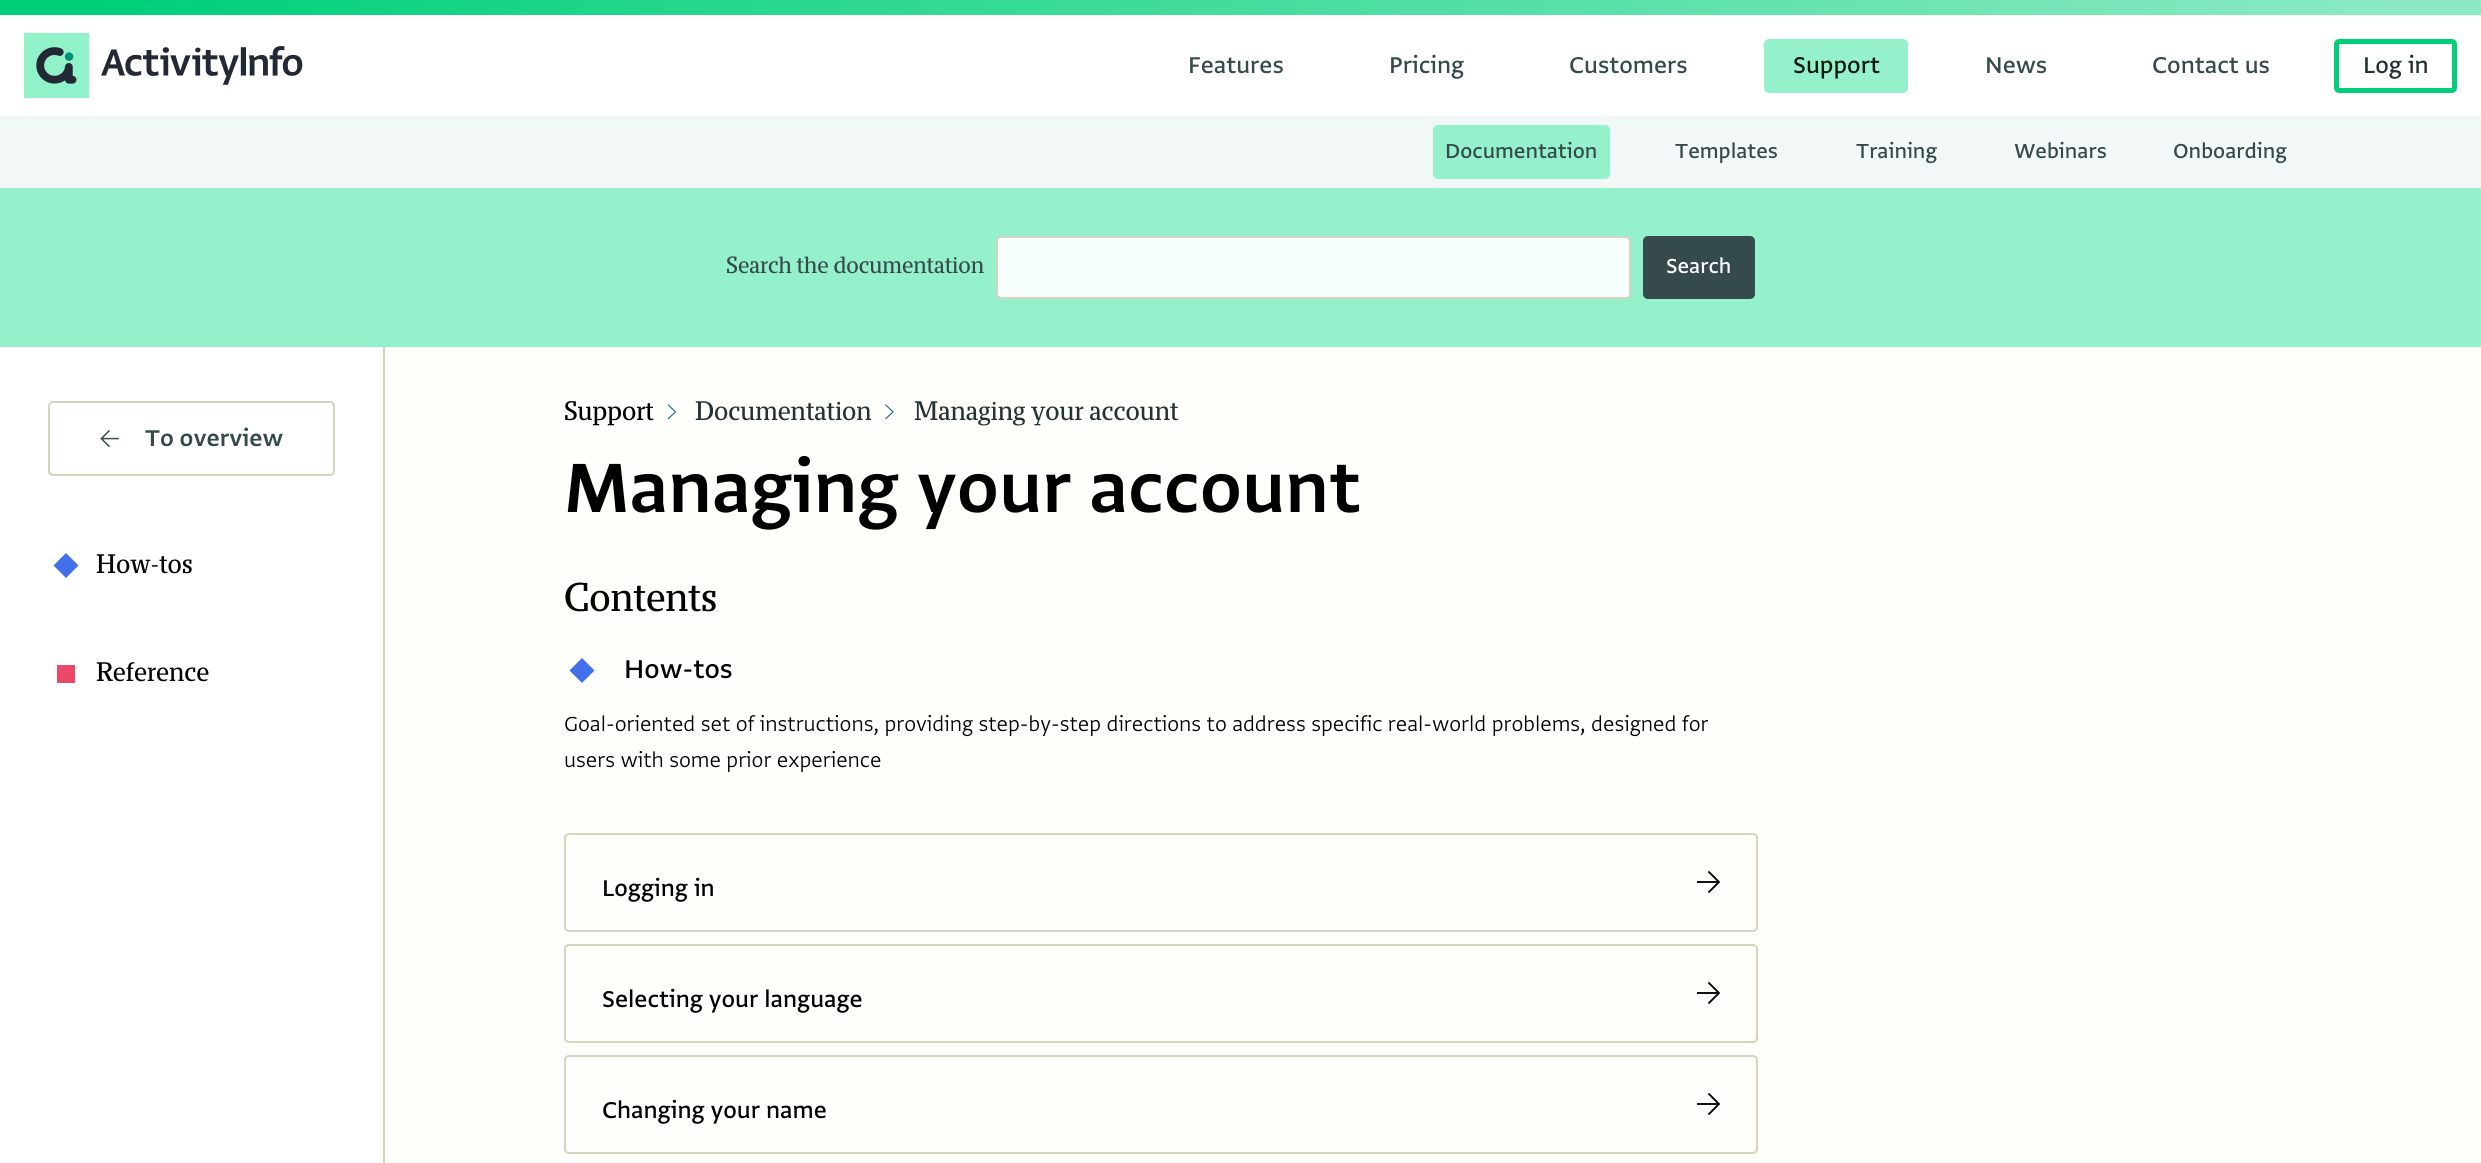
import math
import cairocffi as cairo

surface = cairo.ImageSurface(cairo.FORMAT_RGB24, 2481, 1163)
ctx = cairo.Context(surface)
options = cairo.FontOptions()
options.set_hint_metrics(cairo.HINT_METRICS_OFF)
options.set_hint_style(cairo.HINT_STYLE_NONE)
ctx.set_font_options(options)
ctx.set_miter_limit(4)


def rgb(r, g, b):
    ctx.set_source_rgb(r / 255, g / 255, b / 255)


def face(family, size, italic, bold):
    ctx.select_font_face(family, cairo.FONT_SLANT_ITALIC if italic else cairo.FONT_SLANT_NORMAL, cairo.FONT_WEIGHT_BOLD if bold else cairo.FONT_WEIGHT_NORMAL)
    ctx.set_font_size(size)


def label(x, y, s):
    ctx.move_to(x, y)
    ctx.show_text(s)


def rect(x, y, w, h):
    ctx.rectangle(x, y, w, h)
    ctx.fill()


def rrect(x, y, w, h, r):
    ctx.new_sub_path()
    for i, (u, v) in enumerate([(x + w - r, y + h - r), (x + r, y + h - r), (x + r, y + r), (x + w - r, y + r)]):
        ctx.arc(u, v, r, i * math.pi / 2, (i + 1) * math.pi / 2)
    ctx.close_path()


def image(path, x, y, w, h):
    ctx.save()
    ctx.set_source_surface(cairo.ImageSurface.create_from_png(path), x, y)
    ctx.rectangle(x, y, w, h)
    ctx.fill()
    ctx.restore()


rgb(254, 254, 250)
ctx.paint()
gradient = cairo.LinearGradient(0, 7.5, 2481, 7.5)
gradient.add_color_stop_rgba(0.04, 0, 0.812, 0.475, 1)
gradient.add_color_stop_rgba(0.96, 0.541, 0.914, 0.765, 1)
ctx.set_source(gradient)
rect(0, 0, 2481, 15)
rgb(255, 255, 255)
rect(0, 15, 2481, 101)
image('image0.png', 24, 33, 279, 65)
face('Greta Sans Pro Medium', 27, 0, 0)
rgb(53, 74, 76)
label(1188, 73, 'Features')
label(1389, 73, 'Pricing')
label(1569, 73, 'Customers')
rgb(148, 241, 203)
rrect(1766.5, 41.5, 139, 49, 2.5)
ctx.fill_preserve()
ctx.set_line_width(5)
ctx.stroke()
rgb(5, 26, 17)
label(1793, 73, 'Support')
rgb(53, 74, 76)
label(1985, 73, 'News')
label(2152, 73, 'Contact us')
rrect(2336.5, 41.5, 118, 49, 2.5)
rgb(0, 207, 121)
ctx.stroke()
rgb(36, 50, 51)
label(2363, 73, 'Log in')
rgb(242, 247, 247)
rect(0, 116, 2481, 72)
rgb(148, 241, 203)
rrect(1433, 125, 177, 54, 5)
ctx.fill()
face('Greta Sans Pro Medium', 24, 0, 0)
rgb(53, 74, 76)
label(1445, 158, 'Documentation')
label(1675, 158, 'Templates')
label(1856, 158, 'Training')
label(2014, 158, 'Webinars')
label(2173, 158, 'Onboarding')
rgb(148, 241, 203)
rect(0, 188, 2481, 159)
face('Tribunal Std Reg', 21, 0, 0)
rgb(53, 74, 76)
label(726, 273, 'Search the documentation')
rgb(246, 253, 253)
rrect(997, 237, 633, 61, 4)
ctx.fill_preserve()
rgb(214, 211, 194)
ctx.set_line_width(2)
ctx.stroke()
rgb(53, 74, 76)
rrect(1643, 236, 112, 63, 5)
ctx.fill()
face('Greta Sans Pro Medium', 24, 0, 0)
rgb(255, 255, 255)
label(1666, 273, 'Search')
face('Tribunal Std Reg', 24, 0, 0)
rgb(0, 0, 0)
label(564, 420, 'Support')
image('image1.png', 667, 404, 10, 16)
rgb(36, 50, 51)
label(695, 420, 'Documentation')
image('image2.png', 885, 404, 9, 16)
label(914, 420, 'Managing your account')
rgb(255, 255, 255)
rect(0, 347, 383, 816)
rgb(214, 211, 194)
rect(383, 347, 2, 816)
rrect(49, 402, 285, 73, 4)
ctx.stroke()
image('image3.png', 100, 430, 19, 17)
face('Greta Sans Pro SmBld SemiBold', 27, 0, 0)
rgb(53, 74, 76)
label(145, 446, 'To overview')
rgb(67, 111, 234)
ctx.new_path()
ctx.move_to(66, 553)
ctx.line_to(78.5, 565.5)
ctx.line_to(66, 578)
ctx.line_to(53.5, 565.5)
ctx.close_path()
ctx.fill()
face('Tribunal Std Reg', 24, 0, 0)
rgb(0, 0, 0)
label(96, 573, 'How-tos')
rgb(235, 71, 104)
rect(57, 665, 18, 18)
rgb(0, 0, 0)
label(96, 681, 'Reference')
face('Greta Sans Pro SmBld SemiBold', 82.5, 0, 0)
label(564, 512, 'Managing your account')
face('Tribunal Std Reg', 36, 0, 0)
label(564, 611, 'Contents')
rgb(67, 111, 234)
ctx.new_path()
ctx.move_to(582, 658)
ctx.line_to(594.5, 670.5)
ctx.line_to(582, 683)
ctx.line_to(569.5, 670.5)
ctx.close_path()
ctx.fill()
face('Greta Sans Pro Medium', 30.5, 0, 0)
rgb(0, 0, 0)
label(624, 678, 'How-tos')
face('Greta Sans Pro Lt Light', 24, 0, 0)
label(564, 731, 'Goal-oriented set of instructions, providing step-by-step directions to address specific real-world problems, designed for')
label(564, 767, 'users with some prior experience')
rrect(565, 834, 1192, 97, 4)
rgb(214, 211, 194)
ctx.stroke()
face('Greta Sans Pro Medium', 27, 0, 0)
rgb(0, 0, 0)
label(602, 896, 'Logging in')
image('image4.png', 1697, 870, 24, 24)
rrect(565, 945, 1192, 97, 4)
rgb(214, 211, 194)
ctx.stroke()
rgb(0, 0, 0)
label(602, 1007, 'Selecting your language')
image('image4.png', 1697, 981, 24, 24)
rrect(565, 1056, 1192, 97, 4)
rgb(214, 211, 194)
ctx.stroke()
rgb(0, 0, 0)
label(602, 1118, 'Changing your name')
image('image4.png', 1697, 1092, 24, 24)
surface.write_to_png('render.png')
